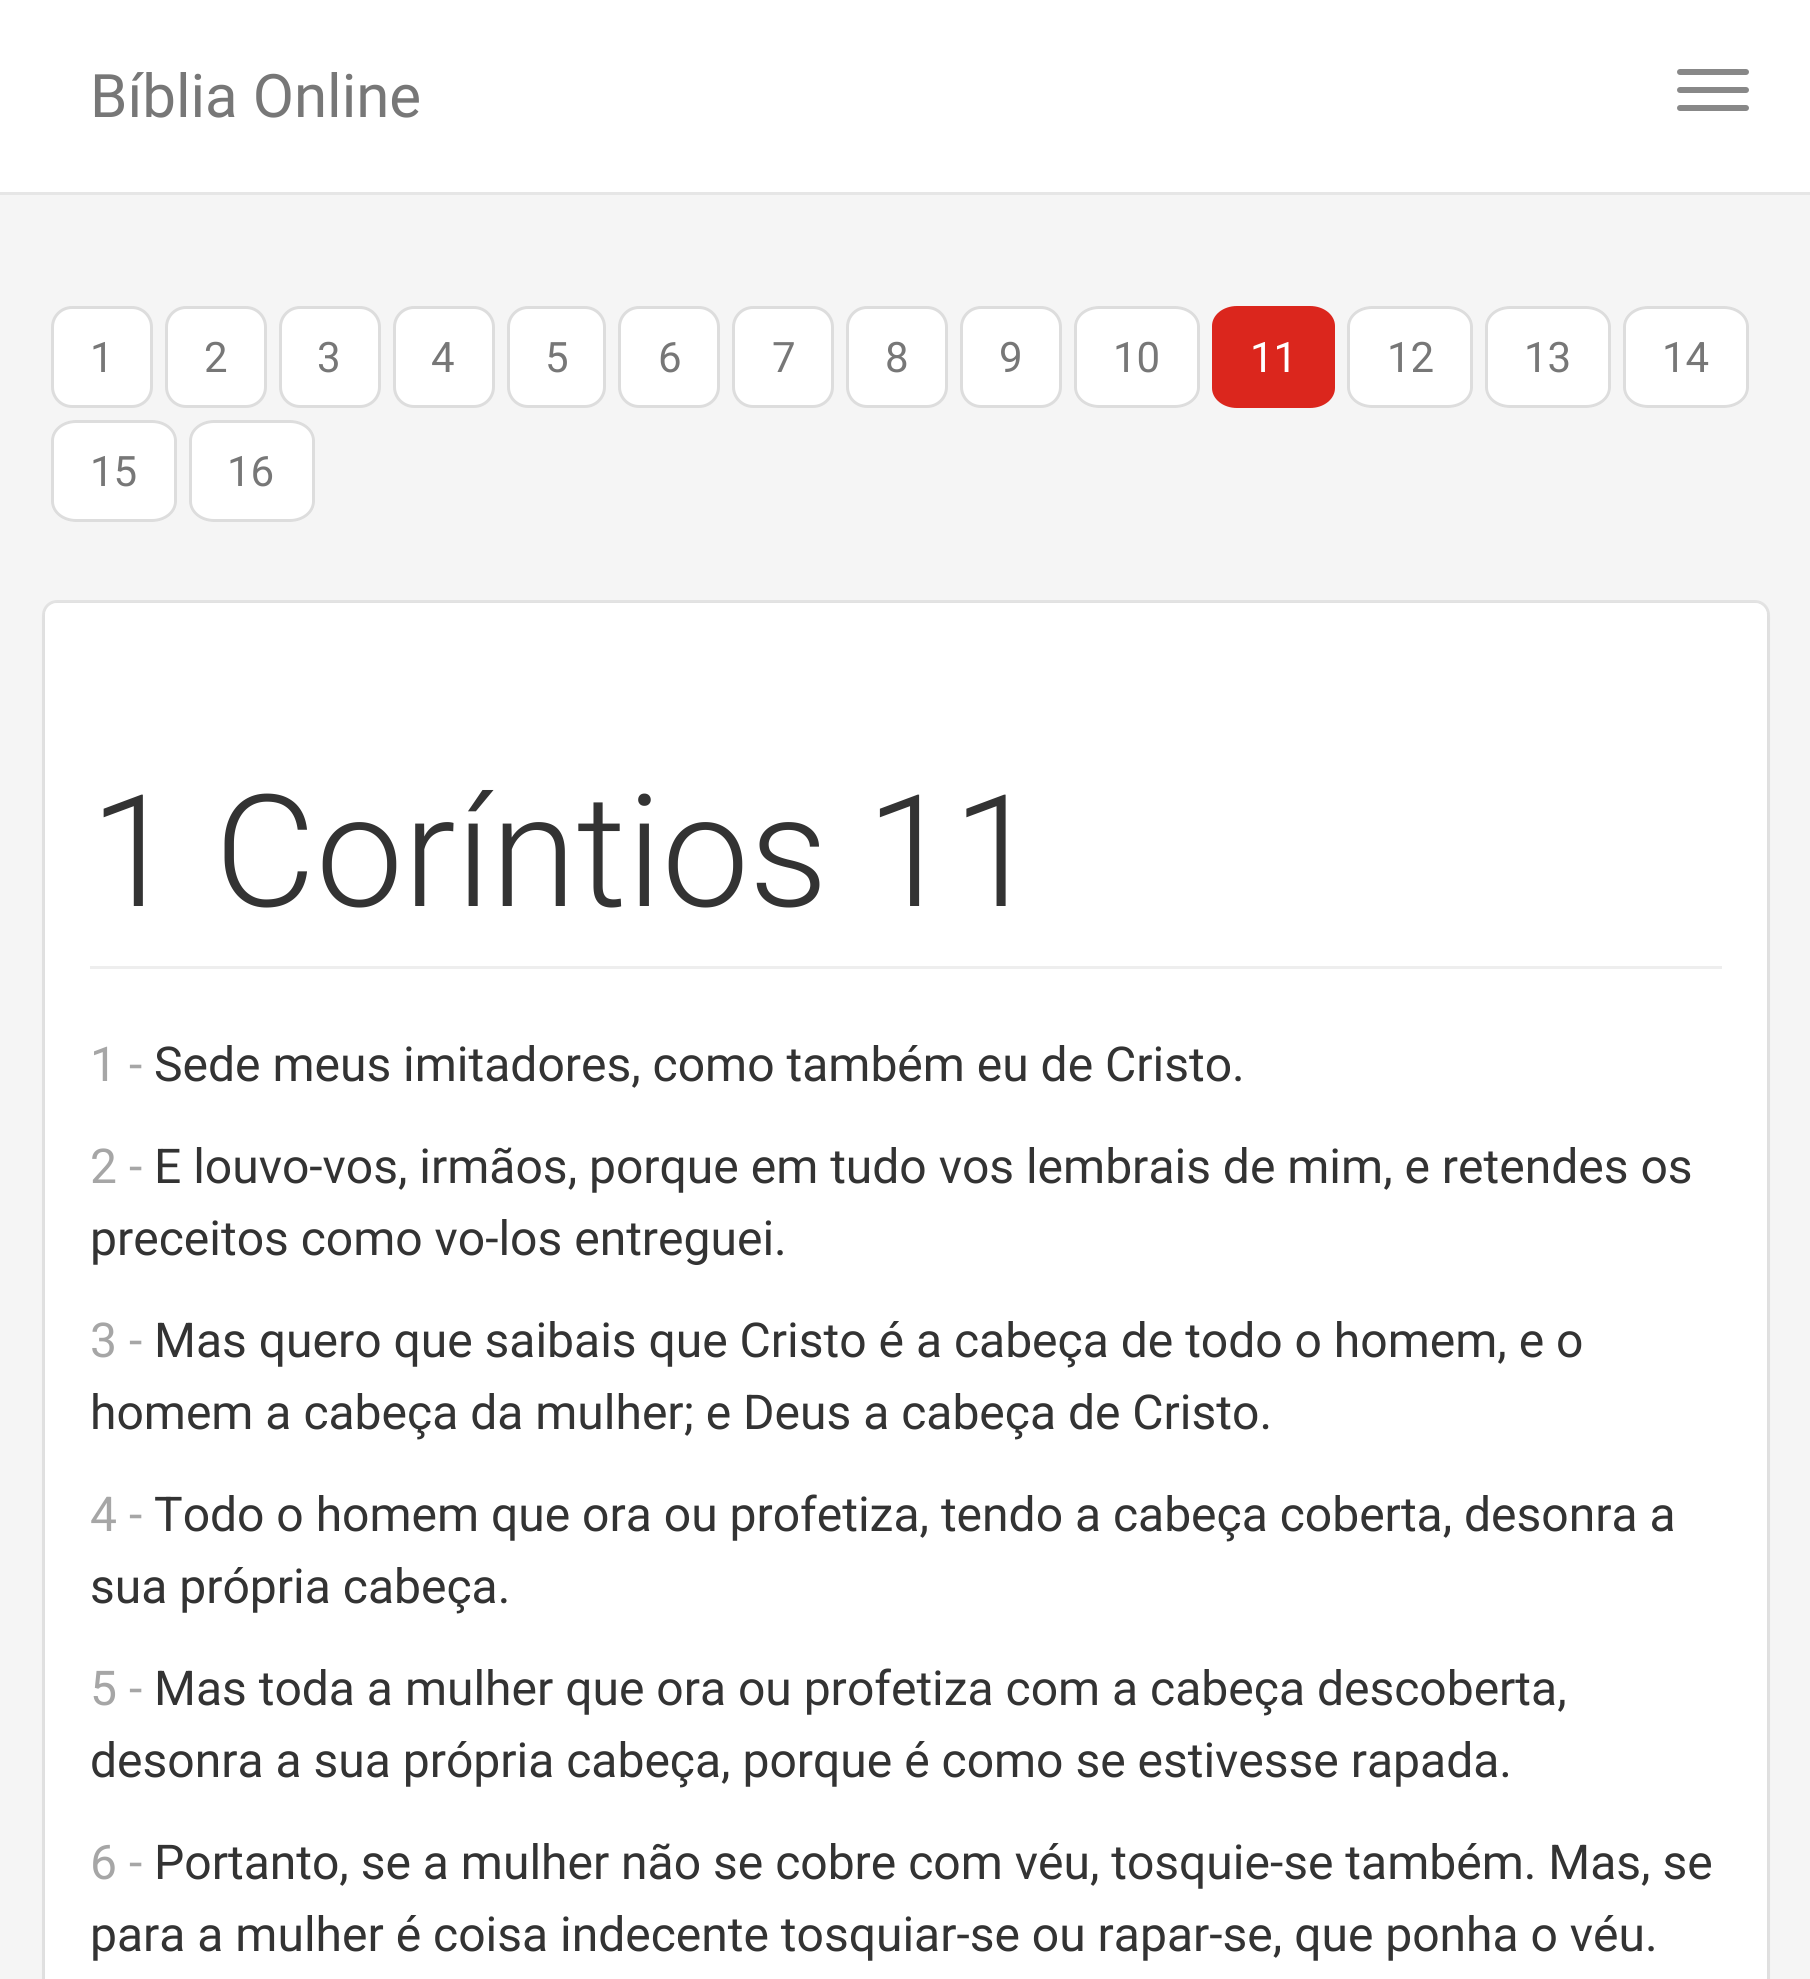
import math
import cairocffi as cairo

surface = cairo.ImageSurface(cairo.FORMAT_RGB24, 1810, 1979)
ctx = cairo.Context(surface)
options = cairo.FontOptions()
options.set_hint_metrics(cairo.HINT_METRICS_OFF)
options.set_hint_style(cairo.HINT_STYLE_NONE)
ctx.set_font_options(options)
ctx.set_miter_limit(4)


def rgb(r, g, b):
    ctx.set_source_rgb(r / 255, g / 255, b / 255)


def face(family, size, italic, bold):
    ctx.select_font_face(family, cairo.FONT_SLANT_ITALIC if italic else cairo.FONT_SLANT_NORMAL, cairo.FONT_WEIGHT_BOLD if bold else cairo.FONT_WEIGHT_NORMAL)
    ctx.set_font_size(size)


def label(x, y, s):
    ctx.move_to(x, y)
    ctx.show_text(s)


def rect(x, y, w, h):
    ctx.rectangle(x, y, w, h)
    ctx.fill()


def rrect(x, y, w, h, r):
    ctx.new_sub_path()
    for i, (u, v) in enumerate([(x + w - r, y + h - r), (x + r, y + h - r), (x + r, y + r), (x + w - r, y + r)]):
        ctx.arc(u, v, r, i * math.pi / 2, (i + 1) * math.pi / 2)
    ctx.close_path()


def soft_shadow(x, y, w, h, r, blur, alpha):
    ctx.push_group_with_content(cairo.CONTENT_ALPHA)
    ctx.set_operator(cairo.OPERATOR_SOURCE)
    for i in range(15, -16, -2):
        e = blur * i / 6
        if min(w, h) + 2 * e > 0:
            ctx.set_source_rgba(0, 0, 0, alpha * math.erfc((i - 1) / 8.5) / 2)
            rrect(x - e, y - e, w + 2 * e, h + 2 * e, max(0, min(r + e + blur * .6, min(w, h) / 2 + e)))
            ctx.fill()
    ctx.mask(ctx.pop_group())


rgb(245, 245, 245)
ctx.paint()
rgb(255, 255, 255)
rect(0, 0, 1810, 192)
rgb(230, 230, 230)
rect(0, 192, 1810, 3)
face('Roboto', 60, 0, 0)
rgb(119, 119, 119)
label(90, 117, 'Bíblia Online')
rgb(136, 136, 136)
rrect(1677, 69, 72, 6, 3)
ctx.fill()
rrect(1677, 87, 72, 6, 3)
ctx.fill()
rrect(1677, 105, 72, 6, 3)
ctx.fill()
rgb(255, 255, 255)
rrect(52.5, 307.5, 99, 99, 19.5)
ctx.fill_preserve()
rgb(221, 221, 221)
ctx.set_line_width(3)
ctx.stroke()
face('Roboto', 42, 0, 0)
rgb(119, 119, 119)
label(90, 372, '1')
rgb(255, 255, 255)
rrect(166.5, 307.5, 99, 99, 19.5)
ctx.fill_preserve()
rgb(221, 221, 221)
ctx.stroke()
rgb(119, 119, 119)
label(204, 372, '2')
rgb(255, 255, 255)
rrect(280.5, 307.5, 99, 99, 19.5)
ctx.fill_preserve()
rgb(221, 221, 221)
ctx.stroke()
rgb(119, 119, 119)
label(317, 372, '3')
rgb(255, 255, 255)
rrect(394.5, 307.5, 99, 99, 19.5)
ctx.fill_preserve()
rgb(221, 221, 221)
ctx.stroke()
rgb(119, 119, 119)
label(431, 372, '4')
rgb(255, 255, 255)
rrect(508.5, 307.5, 96, 99, 19.5)
ctx.fill_preserve()
rgb(221, 221, 221)
ctx.stroke()
rgb(119, 119, 119)
label(545, 372, '5')
rgb(255, 255, 255)
rrect(619.5, 307.5, 99, 99, 19.5)
ctx.fill_preserve()
rgb(221, 221, 221)
ctx.stroke()
rgb(119, 119, 119)
label(658, 372, '6')
rgb(255, 255, 255)
rrect(733.5, 307.5, 99, 99, 19.5)
ctx.fill_preserve()
rgb(221, 221, 221)
ctx.stroke()
rgb(119, 119, 119)
label(772, 372, '7')
rgb(255, 255, 255)
rrect(847.5, 307.5, 99, 99, 19.5)
ctx.fill_preserve()
rgb(221, 221, 221)
ctx.stroke()
rgb(119, 119, 119)
label(885, 372, '8')
rgb(255, 255, 255)
rrect(961.5, 307.5, 99, 99, 19.5)
ctx.fill_preserve()
rgb(221, 221, 221)
ctx.stroke()
rgb(119, 119, 119)
label(999, 372, '9')
rgb(255, 255, 255)
ctx.new_path()
ctx.move_to(1099, 306)
ctx.line_to(1175, 306)
ctx.curve_to(1189, 306, 1200, 315, 1200, 326)
ctx.line_to(1200, 388)
ctx.curve_to(1200, 399, 1189, 408, 1175, 408)
ctx.line_to(1099, 408)
ctx.curve_to(1085, 408, 1074, 399, 1074, 388)
ctx.line_to(1074, 326)
ctx.curve_to(1074, 315, 1085, 306, 1099, 306)
ctx.close_path()
ctx.fill()
ctx.new_path()
ctx.move_to(1099, 307.5)
ctx.line_to(1175, 307.5)
ctx.curve_to(1188, 307.5, 1198.5, 316, 1198.5, 326.5)
ctx.line_to(1198.5, 387.5)
ctx.curve_to(1198.5, 398, 1188, 406.5, 1175, 406.5)
ctx.line_to(1099, 406.5)
ctx.curve_to(1086, 406.5, 1075.5, 398, 1075.5, 387.5)
ctx.line_to(1075.5, 326.5)
ctx.curve_to(1075.5, 316, 1086, 307.5, 1099, 307.5)
ctx.close_path()
rgb(221, 221, 221)
ctx.stroke()
rgb(119, 119, 119)
label(1113, 372, '10')
rgb(219, 38, 29)
ctx.new_path()
ctx.move_to(1237, 306)
ctx.line_to(1310, 306)
ctx.curve_to(1324, 306, 1335, 315, 1335, 326)
ctx.line_to(1335, 388)
ctx.curve_to(1335, 399, 1324, 408, 1310, 408)
ctx.line_to(1237, 408)
ctx.curve_to(1223, 408, 1212, 399, 1212, 388)
ctx.line_to(1212, 326)
ctx.curve_to(1212, 315, 1223, 306, 1237, 306)
ctx.close_path()
ctx.fill()
rgb(255, 255, 255)
label(1250, 372, '11')
ctx.new_path()
ctx.move_to(1372, 306)
ctx.line_to(1448, 306)
ctx.curve_to(1462, 306, 1473, 315, 1473, 326)
ctx.line_to(1473, 388)
ctx.curve_to(1473, 399, 1462, 408, 1448, 408)
ctx.line_to(1372, 408)
ctx.curve_to(1358, 408, 1347, 399, 1347, 388)
ctx.line_to(1347, 326)
ctx.curve_to(1347, 315, 1358, 306, 1372, 306)
ctx.close_path()
ctx.fill()
ctx.new_path()
ctx.move_to(1372, 307.5)
ctx.line_to(1448, 307.5)
ctx.curve_to(1461, 307.5, 1471.5, 316, 1471.5, 326.5)
ctx.line_to(1471.5, 387.5)
ctx.curve_to(1471.5, 398, 1461, 406.5, 1448, 406.5)
ctx.line_to(1372, 406.5)
ctx.curve_to(1359, 406.5, 1348.5, 398, 1348.5, 387.5)
ctx.line_to(1348.5, 326.5)
ctx.curve_to(1348.5, 316, 1359, 307.5, 1372, 307.5)
ctx.close_path()
rgb(221, 221, 221)
ctx.stroke()
rgb(119, 119, 119)
label(1387, 372, '12')
rgb(255, 255, 255)
ctx.new_path()
ctx.move_to(1510, 306)
ctx.line_to(1586, 306)
ctx.curve_to(1600, 306, 1611, 315, 1611, 326)
ctx.line_to(1611, 388)
ctx.curve_to(1611, 399, 1600, 408, 1586, 408)
ctx.line_to(1510, 408)
ctx.curve_to(1496, 408, 1485, 399, 1485, 388)
ctx.line_to(1485, 326)
ctx.curve_to(1485, 315, 1496, 306, 1510, 306)
ctx.close_path()
ctx.fill()
ctx.new_path()
ctx.move_to(1510, 307.5)
ctx.line_to(1586, 307.5)
ctx.curve_to(1599, 307.5, 1609.5, 316, 1609.5, 326.5)
ctx.line_to(1609.5, 387.5)
ctx.curve_to(1609.5, 398, 1599, 406.5, 1586, 406.5)
ctx.line_to(1510, 406.5)
ctx.curve_to(1497, 406.5, 1486.5, 398, 1486.5, 387.5)
ctx.line_to(1486.5, 326.5)
ctx.curve_to(1486.5, 316, 1497, 307.5, 1510, 307.5)
ctx.close_path()
rgb(221, 221, 221)
ctx.stroke()
rgb(119, 119, 119)
label(1524, 372, '13')
rgb(255, 255, 255)
ctx.new_path()
ctx.move_to(1648, 306)
ctx.line_to(1724, 306)
ctx.curve_to(1738, 306, 1749, 315, 1749, 326)
ctx.line_to(1749, 388)
ctx.curve_to(1749, 399, 1738, 408, 1724, 408)
ctx.line_to(1648, 408)
ctx.curve_to(1634, 408, 1623, 399, 1623, 388)
ctx.line_to(1623, 326)
ctx.curve_to(1623, 315, 1634, 306, 1648, 306)
ctx.close_path()
ctx.fill()
ctx.new_path()
ctx.move_to(1648, 307.5)
ctx.line_to(1724, 307.5)
ctx.curve_to(1737, 307.5, 1747.5, 316, 1747.5, 326.5)
ctx.line_to(1747.5, 387.5)
ctx.curve_to(1747.5, 398, 1737, 406.5, 1724, 406.5)
ctx.line_to(1648, 406.5)
ctx.curve_to(1635, 406.5, 1624.5, 398, 1624.5, 387.5)
ctx.line_to(1624.5, 326.5)
ctx.curve_to(1624.5, 316, 1635, 307.5, 1648, 307.5)
ctx.close_path()
rgb(221, 221, 221)
ctx.stroke()
rgb(119, 119, 119)
label(1662, 372, '14')
rgb(255, 255, 255)
ctx.new_path()
ctx.move_to(76, 420)
ctx.line_to(152, 420)
ctx.curve_to(166, 420, 177, 429, 177, 440)
ctx.line_to(177, 502)
ctx.curve_to(177, 513, 166, 522, 152, 522)
ctx.line_to(76, 522)
ctx.curve_to(62, 522, 51, 513, 51, 502)
ctx.line_to(51, 440)
ctx.curve_to(51, 429, 62, 420, 76, 420)
ctx.close_path()
ctx.fill()
ctx.new_path()
ctx.move_to(76, 421.5)
ctx.line_to(152, 421.5)
ctx.curve_to(165, 421.5, 175.5, 430, 175.5, 440.5)
ctx.line_to(175.5, 501.5)
ctx.curve_to(175.5, 512, 165, 520.5, 152, 520.5)
ctx.line_to(76, 520.5)
ctx.curve_to(63, 520.5, 52.5, 512, 52.5, 501.5)
ctx.line_to(52.5, 440.5)
ctx.curve_to(52.5, 430, 63, 421.5, 76, 421.5)
ctx.close_path()
rgb(221, 221, 221)
ctx.stroke()
rgb(119, 119, 119)
label(90, 486, '15')
rgb(255, 255, 255)
ctx.new_path()
ctx.move_to(214, 420)
ctx.line_to(290, 420)
ctx.curve_to(304, 420, 315, 429, 315, 440)
ctx.line_to(315, 502)
ctx.curve_to(315, 513, 304, 522, 290, 522)
ctx.line_to(214, 522)
ctx.curve_to(200, 522, 189, 513, 189, 502)
ctx.line_to(189, 440)
ctx.curve_to(189, 429, 200, 420, 214, 420)
ctx.close_path()
ctx.fill()
ctx.new_path()
ctx.move_to(214, 421.5)
ctx.line_to(290, 421.5)
ctx.curve_to(303, 421.5, 313.5, 430, 313.5, 440.5)
ctx.line_to(313.5, 501.5)
ctx.curve_to(313.5, 512, 303, 520.5, 290, 520.5)
ctx.line_to(214, 520.5)
ctx.curve_to(201, 520.5, 190.5, 512, 190.5, 501.5)
ctx.line_to(190.5, 440.5)
ctx.curve_to(190.5, 430, 201, 421.5, 214, 421.5)
ctx.close_path()
rgb(221, 221, 221)
ctx.stroke()
rgb(119, 119, 119)
label(227, 486, '16')
rrect(43.5, 601.5, 1725, 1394, 13.5)
rgb(227, 227, 227)
ctx.stroke()
rgb(0, 0, 0)
soft_shadow(45, 606, 1722, 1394, 12, 3, 0.05)
rgb(255, 255, 255)
ctx.new_path()
ctx.move_to(57, 603)
ctx.line_to(1755, 603)
ctx.curve_to(1761.5, 603, 1767, 608.5, 1767, 615)
ctx.line_to(1767, 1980)
ctx.line_to(45, 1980)
ctx.line_to(45, 615)
ctx.curve_to(45, 608.5, 50.5, 603, 57, 603)
ctx.close_path()
ctx.fill()
rgb(238, 238, 238)
rect(90, 966, 1632, 3)
face('Roboto Light', 156, 0, 0)
rgb(51, 51, 51)
label(90, 906, '1 Coríntios 11')
face('Roboto', 48, 0, 0)
rgb(166, 166, 166)
label(90, 1081, '1 -')
rgb(51, 51, 51)
label(154, 1081, 'Sede meus imitadores, como também eu de Cristo.')
rgb(166, 166, 166)
label(90, 1183, '2 -')
rgb(51, 51, 51)
label(154, 1183, 'E louvo-vos, irmãos, porque em tudo vos lembrais de mim, e retendes os')
label(90, 1255, 'preceitos como vo-los entreguei.')
rgb(166, 166, 166)
label(90, 1357, '3 -')
rgb(51, 51, 51)
label(154, 1357, 'Mas quero que saibais que Cristo é a cabeça de todo o homem, e o')
label(90, 1429, 'homem a cabeça da mulher; e Deus a cabeça de Cristo.')
rgb(166, 166, 166)
label(90, 1531, '4 -')
rgb(51, 51, 51)
label(154, 1531, 'Todo o homem que ora ou profetiza, tendo a cabeça coberta, desonra a')
label(90, 1603, 'sua própria cabeça.')
rgb(166, 166, 166)
label(90, 1705, '5 -')
rgb(51, 51, 51)
label(154, 1705, 'Mas toda a mulher que ora ou profetiza com a cabeça descoberta,')
label(90, 1777, 'desonra a sua própria cabeça, porque é como se estivesse rapada.')
rgb(166, 166, 166)
label(90, 1879, '6 -')
rgb(51, 51, 51)
label(154, 1879, 'Portanto, se a mulher não se cobre com véu, tosquie-se também. Mas, se')
label(90, 1951, 'para a mulher é coisa indecente tosquiar-se ou rapar-se, que ponha o véu.')
surface.write_to_png('render.png')
